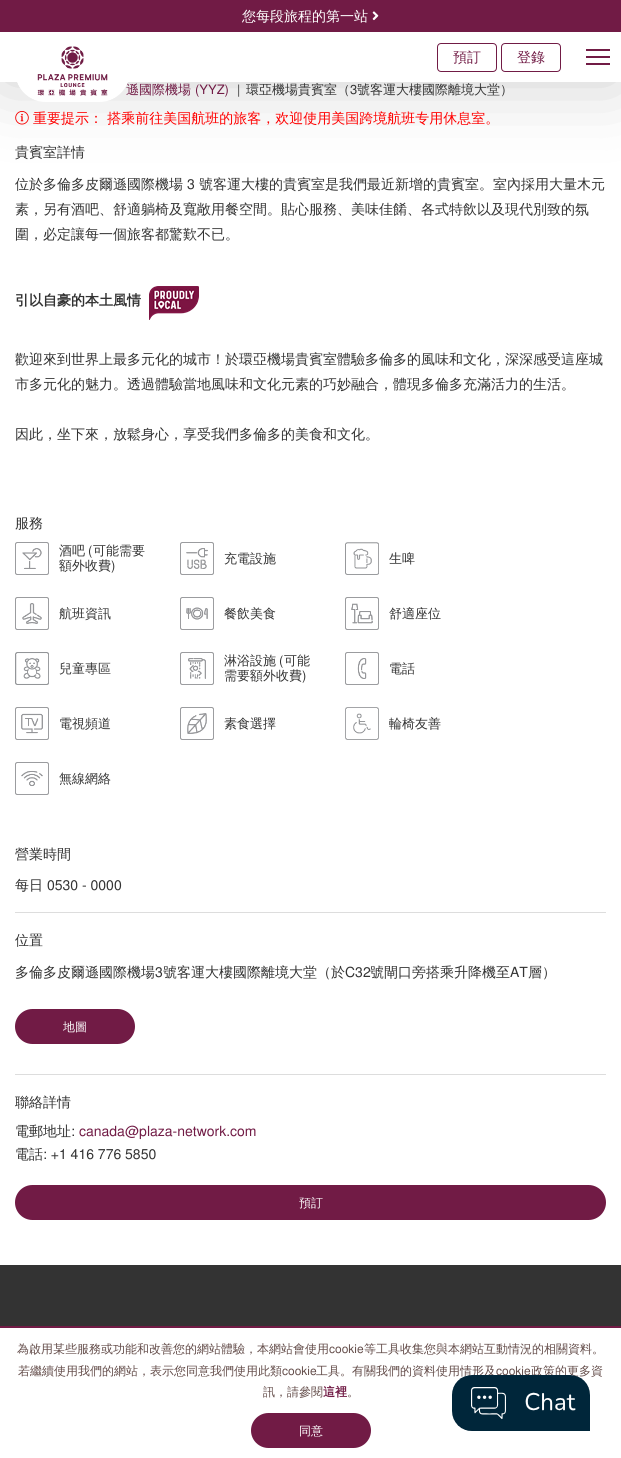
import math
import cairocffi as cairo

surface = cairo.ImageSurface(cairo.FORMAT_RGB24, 621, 1458)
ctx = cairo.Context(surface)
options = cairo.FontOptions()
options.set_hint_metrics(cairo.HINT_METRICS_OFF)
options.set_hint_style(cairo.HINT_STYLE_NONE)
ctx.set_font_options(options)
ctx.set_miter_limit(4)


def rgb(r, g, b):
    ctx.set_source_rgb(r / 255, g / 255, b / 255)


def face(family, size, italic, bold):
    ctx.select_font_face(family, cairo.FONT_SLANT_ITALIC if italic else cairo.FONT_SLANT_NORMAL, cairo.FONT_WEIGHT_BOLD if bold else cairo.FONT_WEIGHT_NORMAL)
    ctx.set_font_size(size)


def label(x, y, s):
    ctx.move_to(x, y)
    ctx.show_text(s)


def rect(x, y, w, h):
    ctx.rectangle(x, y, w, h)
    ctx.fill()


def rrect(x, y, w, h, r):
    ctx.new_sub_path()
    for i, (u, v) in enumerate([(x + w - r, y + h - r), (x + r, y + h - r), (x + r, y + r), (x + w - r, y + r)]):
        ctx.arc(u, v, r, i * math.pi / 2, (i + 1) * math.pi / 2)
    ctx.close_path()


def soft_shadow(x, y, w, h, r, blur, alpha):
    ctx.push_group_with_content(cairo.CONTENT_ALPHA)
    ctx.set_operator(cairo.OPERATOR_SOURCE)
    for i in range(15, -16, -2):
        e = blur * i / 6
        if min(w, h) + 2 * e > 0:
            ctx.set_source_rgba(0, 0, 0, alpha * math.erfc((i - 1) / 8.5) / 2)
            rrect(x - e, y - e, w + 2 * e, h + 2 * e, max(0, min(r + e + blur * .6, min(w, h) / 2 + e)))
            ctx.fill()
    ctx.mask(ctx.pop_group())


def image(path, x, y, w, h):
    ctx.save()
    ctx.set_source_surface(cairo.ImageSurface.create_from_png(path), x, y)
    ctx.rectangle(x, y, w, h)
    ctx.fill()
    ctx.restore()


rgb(255, 255, 255)
ctx.paint()
image('image2.png', 15, 111, 14, 14)
rgb(0, 0, 0)
soft_shadow(0, 32, 621, 50, 0, 37.5, 0.2)
rgb(113, 27, 69)
rect(0, 0, 621, 32)
face('WenQuanYi Zen Hei Medium', 14, 0, 0)
rgb(255, 255, 255)
label(242, 21, '您每段旅程的第一站')
image('image0.png', 372, 11, 7, 10)
rect(0, 32, 621, 50)
face('WenQuanYi Zen Hei Medium', 13, 0, 0)
rgb(113, 27, 69)
label(126, 94, '遜國際機場')
image('image1.png', 17, 46, 111, 56)
rrect(437.5, 43.5, 59, 28, 3.5)
ctx.set_line_width(1)
ctx.stroke()
face('WenQuanYi Zen Hei Medium', 14, 0, 0)
label(453, 62, '預訂')
rrect(501.5, 43.5, 59, 28, 3.5)
ctx.stroke()
label(517, 62, '登錄')
rect(586, 56, 24, 2)
rect(586, 49, 24, 2)
rect(586, 63, 24, 2)
face('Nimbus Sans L', 13, 0, 0)
label(195, 94, '(YYZ)')
rgb(51, 51, 51)
label(237, 94, '|')
face('WenQuanYi Zen Hei Medium', 13, 0, 0)
label(246, 94, '環亞機場貴賓室（')
face('Nimbus Sans L', 13, 0, 0)
label(350, 94, '3')
face('WenQuanYi Zen Hei Medium', 13, 0, 0)
label(357, 94, '號客運大樓國際離境大堂）')
face('WenQuanYi Zen Hei Medium', 14, 0, 0)
rgb(255, 0, 0)
label(33, 123, '重要提示： 搭乘前往美国航班的旅客，欢迎使用美国跨境航班专用休息室。')
rgb(51, 51, 51)
label(15, 157, '貴賓室詳情')
label(15, 189, '位於多倫多皮爾遜國際機場')
face('Nimbus Sans L', 14, 0, 0)
label(187, 189, '3')
face('WenQuanYi Zen Hei Medium', 14, 0, 0)
label(199, 189, '號客運大樓的貴賓室是我們最近新增的貴賓室。室內採用大量木元')
label(15, 214, '素，另有酒吧、舒適躺椅及寬敞用餐空間。貼心服務、美味佳餚、各式特飲以及現代別致的氛')
label(15, 239, '圍，必定讓每一個旅客都驚歎不已。')
face('WenQuanYi Zen Hei', 14, 0, 1)
label(15, 305, '引以自豪的本土風情')
image('image3.png', 149, 286, 50, 34)
face('WenQuanYi Zen Hei Medium', 14, 0, 0)
label(15, 364, '歡迎來到世界上最多元化的城市！於環亞機場貴賓室體驗多倫多的風味和文化，深深感受這座城')
label(15, 389, '市多元化的魅力。透過體驗當地風味和文化元素的巧妙融合，體現多倫多充滿活力的生活。')
label(15, 439, '因此，坐下來，放鬆身心，享受我們多倫多的美食和文化。')
label(15, 528, '服務')
image('image4.png', 15, 542, 34, 33)
face('WenQuanYi Zen Hei Medium', 13, 0, 0)
label(59, 555, '酒吧')
face('Nimbus Sans L', 13, 0, 0)
label(88, 555, '(')
face('WenQuanYi Zen Hei Medium', 13, 0, 0)
label(93, 555, '可能需要')
label(59, 570, '額外收費')
face('Nimbus Sans L', 13, 0, 0)
label(111, 570, ')')
image('image5.png', 180, 542, 34, 33)
face('WenQuanYi Zen Hei Medium', 13, 0, 0)
label(224, 563, '充電設施')
image('image6.png', 345, 542, 34, 33)
label(389, 563, '生啤')
image('image7.png', 15, 597, 34, 33)
label(59, 618, '航班資訊')
image('image8.png', 180, 597, 34, 33)
label(224, 618, '餐飲美食')
image('image9.png', 345, 597, 34, 33)
label(389, 618, '舒適座位')
image('image10.png', 15, 652, 34, 33)
label(59, 673, '兒童專區')
image('image11.png', 180, 652, 34, 33)
label(224, 665, '淋浴設施')
face('Nimbus Sans L', 13, 0, 0)
label(279, 665, '(')
face('WenQuanYi Zen Hei Medium', 13, 0, 0)
label(284, 665, '可能')
label(224, 680, '需要額外收費')
face('Nimbus Sans L', 13, 0, 0)
label(302, 680, ')')
image('image12.png', 345, 652, 34, 33)
face('WenQuanYi Zen Hei Medium', 13, 0, 0)
label(389, 673, '電話')
image('image13.png', 15, 707, 34, 33)
label(59, 728, '電視頻道')
image('image14.png', 180, 707, 34, 33)
label(224, 728, '素食選擇')
image('image15.png', 345, 707, 34, 33)
label(389, 728, '輪椅友善')
image('image16.png', 15, 762, 34, 33)
label(59, 783, '無線網絡')
face('WenQuanYi Zen Hei Medium', 14, 0, 0)
label(15, 859, '營業時間')
label(15, 890, '每日')
face('Nimbus Sans L', 14, 0, 0)
label(47, 890, '0530 - 0000')
rgb(221, 221, 221)
rect(15, 912, 591, 1)
face('WenQuanYi Zen Hei Medium', 14, 0, 0)
rgb(51, 51, 51)
label(15, 945, '位置')
label(15, 977, '多倫多皮爾遜國際機場')
face('Nimbus Sans L', 14, 0, 0)
label(155, 977, '3')
face('WenQuanYi Zen Hei Medium', 14, 0, 0)
label(163, 977, '號客運大樓國際離境大堂（於')
face('Nimbus Sans L', 14, 0, 0)
label(345, 977, 'C32')
face('WenQuanYi Zen Hei Medium', 14, 0, 0)
label(370, 977, '號閘口旁搭乘升降機至')
face('Nimbus Sans L', 14, 0, 0)
label(510, 977, 'AT')
face('WenQuanYi Zen Hei Medium', 14, 0, 0)
label(528, 977, '層）')
rgb(113, 27, 69)
rrect(15, 1009, 120, 35, 17.5)
ctx.fill()
face('WenQuanYi Zen Hei Medium', 12, 0, 0)
rgb(255, 255, 255)
label(63, 1031, '地圖')
rgb(221, 221, 221)
rect(15, 1074, 591, 1)
face('WenQuanYi Zen Hei Medium', 14, 0, 0)
rgb(51, 51, 51)
label(15, 1107, '聯絡詳情')
label(15, 1136, '電郵地址')
face('Nimbus Sans L', 14, 0, 0)
label(71, 1136, ':')
rgb(113, 27, 69)
label(79, 1136, 'canada@plaza-network.com')
face('WenQuanYi Zen Hei Medium', 14, 0, 0)
rgb(51, 51, 51)
label(15, 1159, '電話')
face('Nimbus Sans L', 14, 0, 0)
label(43, 1159, ': +1 416 776 5850')
rgb(113, 27, 69)
rrect(15, 1185, 591, 35, 17.5)
ctx.fill()
face('WenQuanYi Zen Hei Medium', 12, 0, 0)
rgb(255, 255, 255)
label(299, 1207, '預訂')
image('image17.png', 0, 1265, 621, 61)
rgb(113, 27, 69)
rect(0, 1326, 621, 2)
rgb(99, 76, 73)
label(17, 1353, '為啟用某些服務或功能和改善您的網站體驗，本網站會使用')
face('Nimbus Sans L', 12, 0, 0)
label(329, 1353, 'cookie')
face('WenQuanYi Zen Hei Medium', 12, 0, 0)
label(364, 1353, '等工具收集您與本網站互動情況的相關資料。')
label(18, 1375, '若繼續使用我們的網站，表示您同意我們使用此類')
face('Nimbus Sans L', 12, 0, 0)
label(282, 1375, 'cookie')
face('WenQuanYi Zen Hei Medium', 12, 0, 0)
label(316, 1375, '工具。有關我們的資料使用情形及')
face('Nimbus Sans L', 12, 0, 0)
label(496, 1375, 'cookie')
face('WenQuanYi Zen Hei Medium', 12, 0, 0)
label(531, 1375, '政策的更多資')
label(263, 1396, '訊，請參閱')
face('WenQuanYi Zen Hei', 12, 0, 1)
rgb(113, 27, 69)
label(323, 1396, '這裡')
face('WenQuanYi Zen Hei Medium', 12, 0, 0)
rgb(99, 76, 73)
label(347, 1396, '。')
rgb(113, 27, 69)
rrect(251, 1413, 120, 35, 17.5)
ctx.fill()
rgb(255, 255, 255)
label(299, 1435, '同意')
image('image18.png', 452, 1375, 138, 56)
surface.write_to_png('render.png')
